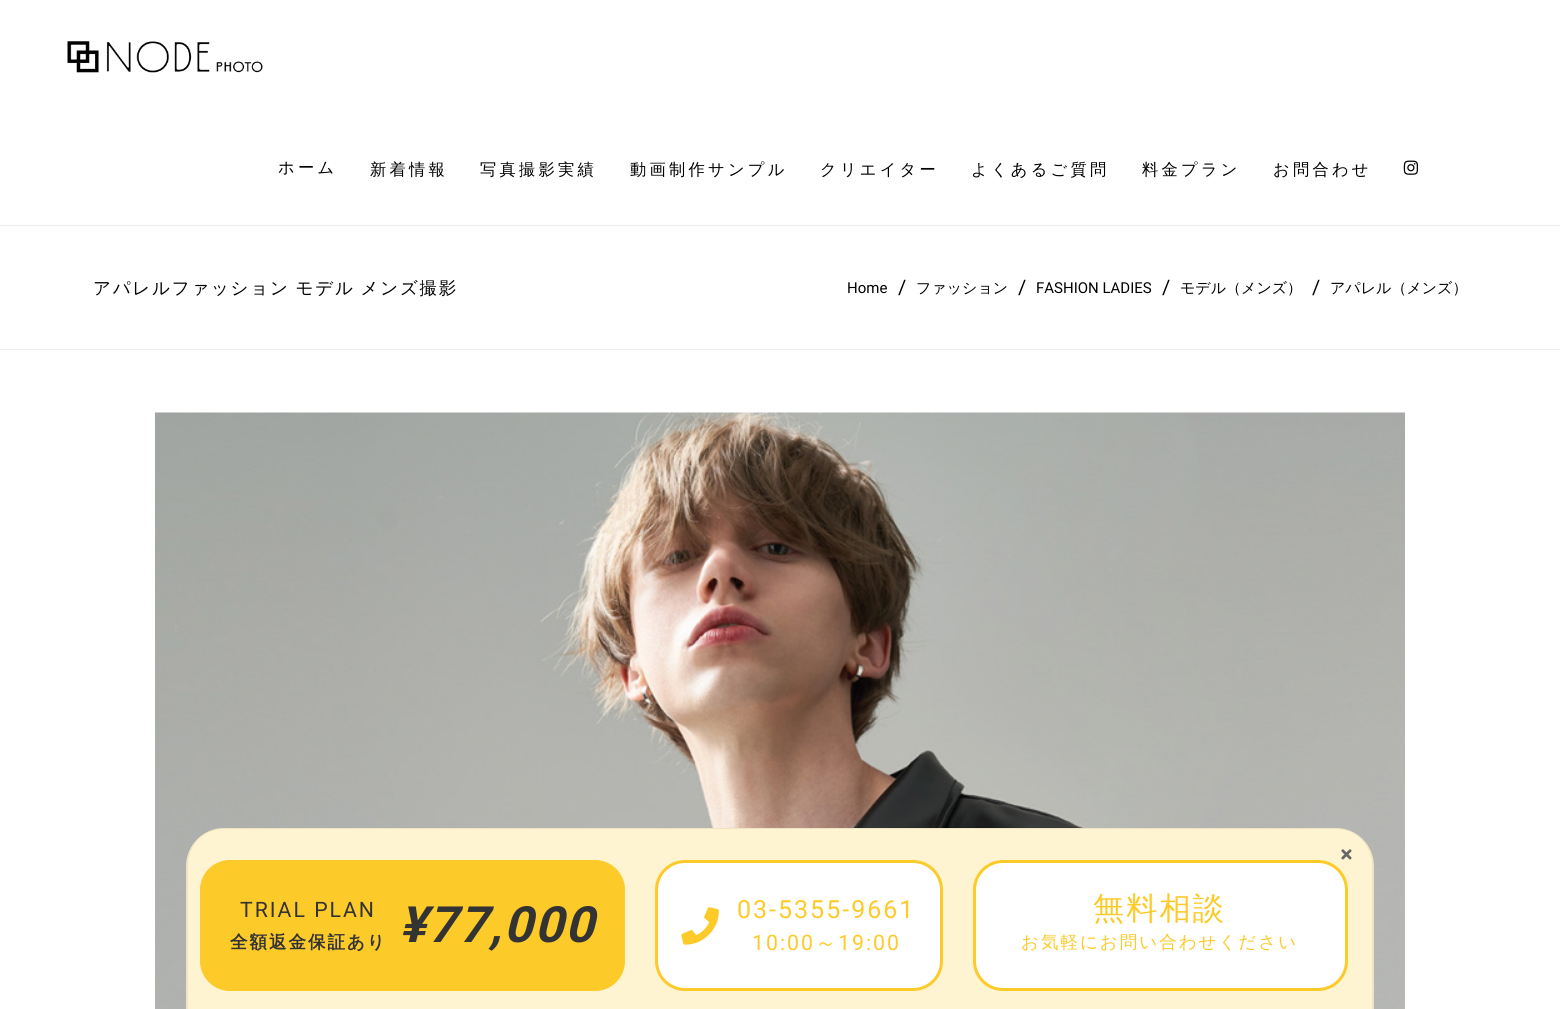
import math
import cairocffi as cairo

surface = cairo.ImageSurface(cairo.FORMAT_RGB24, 1560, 1009)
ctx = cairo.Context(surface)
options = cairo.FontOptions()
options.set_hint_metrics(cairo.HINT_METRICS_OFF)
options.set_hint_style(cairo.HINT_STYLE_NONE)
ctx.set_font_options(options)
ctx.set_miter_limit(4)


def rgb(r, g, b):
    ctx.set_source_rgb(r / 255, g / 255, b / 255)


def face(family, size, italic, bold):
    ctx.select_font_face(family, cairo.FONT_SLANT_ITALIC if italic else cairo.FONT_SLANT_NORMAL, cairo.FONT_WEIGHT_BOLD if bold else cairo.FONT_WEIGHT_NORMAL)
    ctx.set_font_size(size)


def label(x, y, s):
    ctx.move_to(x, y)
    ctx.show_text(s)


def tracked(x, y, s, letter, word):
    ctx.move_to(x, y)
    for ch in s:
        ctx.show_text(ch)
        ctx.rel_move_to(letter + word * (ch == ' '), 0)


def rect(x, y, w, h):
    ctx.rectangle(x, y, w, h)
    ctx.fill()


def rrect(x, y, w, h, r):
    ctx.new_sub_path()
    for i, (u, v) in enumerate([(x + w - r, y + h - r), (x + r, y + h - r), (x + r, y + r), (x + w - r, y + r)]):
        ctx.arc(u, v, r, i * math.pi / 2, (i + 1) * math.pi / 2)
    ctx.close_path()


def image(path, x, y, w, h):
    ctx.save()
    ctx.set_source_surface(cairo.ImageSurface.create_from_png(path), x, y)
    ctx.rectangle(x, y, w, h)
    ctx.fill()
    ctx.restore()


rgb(255, 255, 255)
ctx.paint()
image('image0.png', 67, 41, 196, 32)
face('WenQuanYi Zen Hei Medium', 16.25, 0, 0)
rgb(0, 0, 0)
tracked(278, 173, 'ホーム', 3.25, 0)
tracked(370, 175, '新着情報', 3.25, 0)
tracked(480, 175, '写真撮影実績', 3.25, 0)
tracked(630, 175, '動画制作サンプル', 3.25, 0)
tracked(820, 175, 'クリエイター', 3.25, 0)
tracked(971, 175, 'よくあるご質問', 3.25, 0)
tracked(1142, 175, '料金プラン', 3.25, 0)
tracked(1273, 175, 'お問合わせ', 3.25, 0)
image('image1.png', 1403, 160, 15, 15)
rgb(236, 236, 236)
rect(0, 225, 1560, 1)
rect(0, 349, 1560, 1)
face('WenQuanYi Zen Hei Medium', 17.5, 0, 0)
rgb(0, 0, 0)
tracked(93, 294, 'アパレルファッション モデル メンズ撮影', 1.75, -1)
face('Roboto', 15, 0, 0)
label(847, 293, 'Home')
face('Roboto', 20, 0, 0)
label(898, 294, '/')
face('WenQuanYi Zen Hei Medium', 15, 0, 0)
label(916, 293, 'ファッション')
face('Roboto', 20, 0, 0)
label(1018, 294, '/')
face('Roboto', 15, 0, 0)
label(1036, 293, 'FASHION LADIES')
face('Roboto', 20, 0, 0)
label(1162, 294, '/')
face('WenQuanYi Zen Hei Medium', 15, 0, 0)
label(1180, 293, 'モデル（メンズ）')
face('Roboto', 20, 0, 0)
label(1312, 294, '/')
face('WenQuanYi Zen Hei Medium', 15, 0, 0)
label(1330, 293, 'アパレル（メンズ）')
image('image2.png', 155, 412, 1250, 597)
rgb(255, 244, 209)
ctx.new_path()
ctx.move_to(224, 828)
ctx.line_to(1336, 828)
ctx.curve_to(1357, 828, 1374, 845, 1374, 866)
ctx.line_to(1374, 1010)
ctx.line_to(186, 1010)
ctx.line_to(186, 866)
ctx.curve_to(186, 845, 203, 828, 224, 828)
ctx.close_path()
ctx.fill()
ctx.set_source_rgba(0, 0, 0, 0.07)
ctx.set_fill_rule(cairo.FILL_RULE_EVEN_ODD)
ctx.new_path()
ctx.move_to(224, 828)
ctx.line_to(1336, 828)
ctx.curve_to(1357, 828, 1374, 844, 1374, 865)
ctx.line_to(1374, 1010)
ctx.line_to(186, 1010)
ctx.line_to(186, 865)
ctx.curve_to(186, 844, 203, 828, 224, 828)
ctx.close_path()
ctx.move_to(224, 829)
ctx.line_to(1336, 829)
ctx.curve_to(1356, 829, 1372, 845, 1372, 865)
ctx.line_to(1372, 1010)
ctx.line_to(188, 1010)
ctx.line_to(188, 865)
ctx.curve_to(188, 845, 204, 829, 224, 829)
ctx.close_path()
ctx.fill()
image('image3.png', 1341, 849, 11, 11)
rgb(252, 202, 41)
rrect(200.5, 860.5, 424, 130, 29.5)
ctx.fill_preserve()
ctx.set_line_width(1)
ctx.stroke()
face('Roboto', 21.25, 0, 0)
rgb(51, 51, 51)
tracked(240, 917, 'TRIAL PLAN', 2, 0)
face('WenQuanYi Zen Hei', 17.5, 0, 1)
tracked(230, 948, '全額返金保証あり', 2, 0)
face('Roboto', 50, 1, 1)
tracked(399, 942, '¥77,000', 2, 0)
rgb(255, 255, 255)
rrect(656.5, 861.5, 285, 128, 28.5)
ctx.fill_preserve()
rgb(252, 202, 41)
ctx.set_line_width(3)
ctx.stroke()
image('image4.png', 681, 907, 38, 38)
face('Roboto', 25, 0, 0)
tracked(737, 918, '03-5355-9661', 2, 0)
face('Roboto', 21.25, 0, 0)
tracked(752, 950, '10:00', 2, 0)
face('WenQuanYi Zen Hei Medium', 21.25, 0, 0)
tracked(815, 950, '～', 2, 0)
face('Roboto', 21.25, 0, 0)
tracked(838, 950, '19:00', 2, 0)
rgb(255, 255, 255)
rrect(974.5, 861.5, 372, 128, 28.5)
ctx.fill_preserve()
rgb(252, 202, 41)
ctx.stroke()
face('WenQuanYi Zen Hei Medium', 31.25, 0, 0)
tracked(1093, 919, '無料相談', 2, 0)
face('WenQuanYi Zen Hei Medium', 17.5, 0, 0)
tracked(1021, 948, 'お気軽にお問い合わせください', 2, 0)
surface.write_to_png('render.png')
